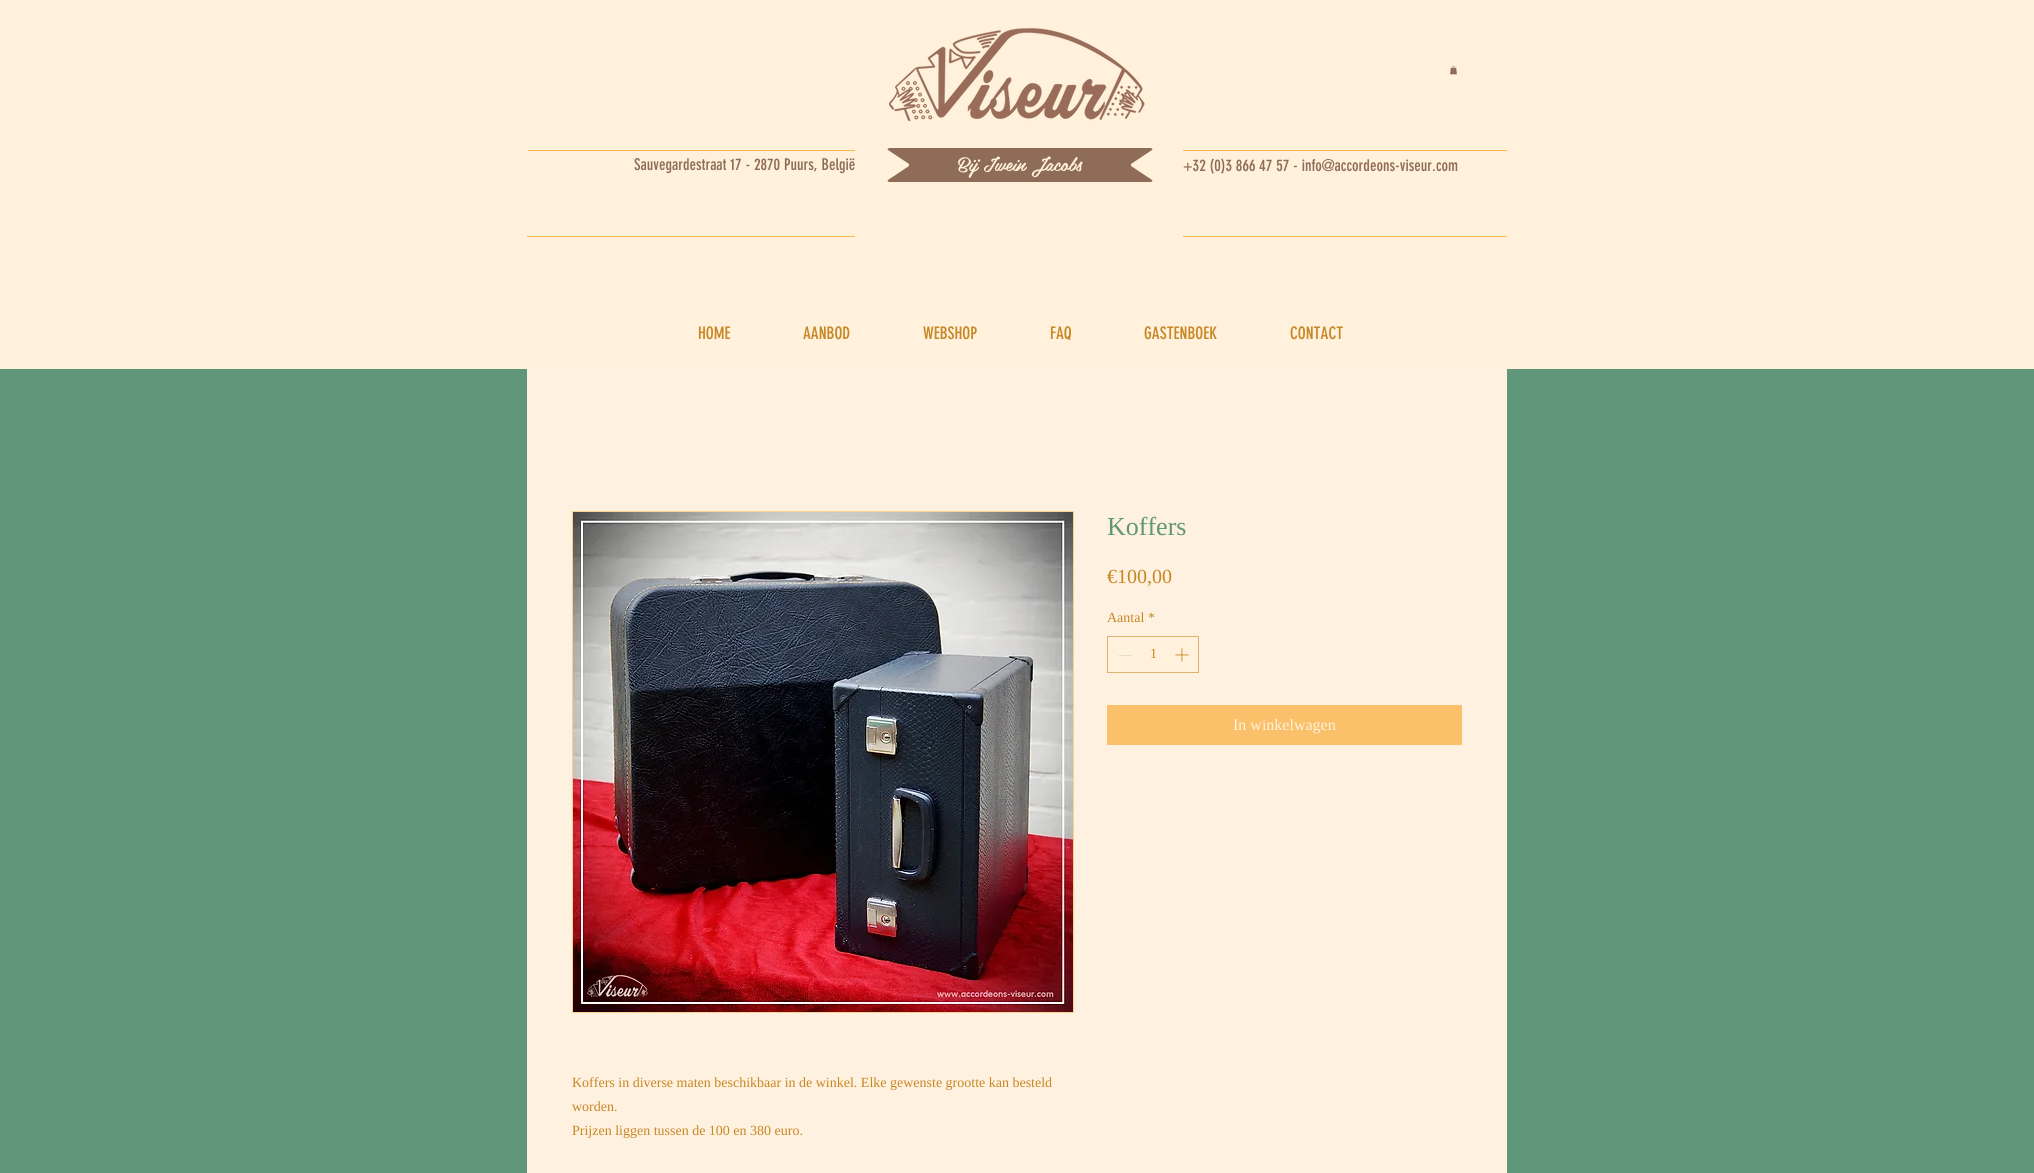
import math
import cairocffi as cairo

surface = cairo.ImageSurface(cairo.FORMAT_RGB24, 2034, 1173)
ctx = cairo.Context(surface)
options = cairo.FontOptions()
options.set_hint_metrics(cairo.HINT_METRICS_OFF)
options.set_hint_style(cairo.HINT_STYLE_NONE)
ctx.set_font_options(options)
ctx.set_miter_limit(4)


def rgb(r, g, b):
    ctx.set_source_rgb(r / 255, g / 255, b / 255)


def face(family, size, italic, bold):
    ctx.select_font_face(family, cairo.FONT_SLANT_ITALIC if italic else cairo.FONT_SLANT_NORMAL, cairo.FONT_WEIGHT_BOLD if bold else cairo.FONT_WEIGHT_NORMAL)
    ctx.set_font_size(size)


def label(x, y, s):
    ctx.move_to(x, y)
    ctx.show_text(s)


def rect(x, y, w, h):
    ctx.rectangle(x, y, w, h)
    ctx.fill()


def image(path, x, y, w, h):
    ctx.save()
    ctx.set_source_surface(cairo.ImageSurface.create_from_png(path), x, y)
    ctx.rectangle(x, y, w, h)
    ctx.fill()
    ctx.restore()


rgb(96, 151, 123)
ctx.paint()
rgb(255, 241, 219)
rect(0, 0, 2034, 369)
image('image0.png', 889, 28, 256, 94)
image('image1.png', 1450, 66, 7, 9)
rgb(252, 182, 76)
rect(528, 150, 327, 1)
rgb(142, 108, 87)
ctx.new_path()
ctx.move_to(1152, 150)
ctx.curve_to(1153, 149, 1152, 148, 1150, 148)
ctx.line_to(890, 148)
ctx.curve_to(888, 148, 887, 149, 888, 150)
ctx.line_to(909, 164)
ctx.curve_to(909, 165, 909, 165, 909, 166)
ctx.line_to(888, 180)
ctx.curve_to(887, 181, 888, 182, 890, 182)
ctx.line_to(1150, 182)
ctx.curve_to(1152, 182, 1153, 181, 1152, 180)
ctx.line_to(1131, 166)
ctx.curve_to(1131, 165, 1131, 165, 1131, 164)
ctx.close_path()
ctx.fill()
rgb(252, 182, 76)
rect(1183, 150, 324, 1)
face('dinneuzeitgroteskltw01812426', 16, 0, 0)
rgb(142, 108, 87)
label(634, 170, 'Sauvegardestraat 17 - 2870 Puurs, België')
face('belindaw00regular', 19, 0, 0)
rgb(255, 241, 219)
label(958, 171, 'Bij Iwein Jacobs')
face('dinneuzeitgroteskltw01812426', 16, 0, 0)
rgb(142, 108, 87)
label(1183, 171, '+32 (0)3 866 47 57 - info@accordeons-viseur.com')
rgb(252, 182, 76)
rect(527, 236, 328, 1)
rect(1183, 236, 324, 1)
face('dinneuzeitgroteskltw01812426', 17, 0, 0)
rgb(199, 135, 37)
label(698, 339, 'HOME')
label(803, 339, 'AANBOD')
label(923, 339, 'WEBSHOP')
label(1050, 339, 'FAQ')
label(1144, 339, 'GASTENBOEK')
label(1290, 339, 'CONTACT')
rgb(255, 241, 223)
rect(527, 369, 980, 804)
face('Liberation Serif', 26, 0, 0)
rgb(96, 151, 123)
label(1107, 535, 'Koffers')
face('Liberation Serif', 20, 0, 0)
rgb(199, 135, 37)
label(1107, 583, '€100,00')
face('Liberation Serif', 14, 0, 0)
label(1107, 622, 'Aantal')
label(1148, 622, '*')
rgb(255, 241, 219)
ctx.rectangle(1107.5, 636.5, 91, 36)
ctx.fill_preserve()
rgb(221, 177, 110)
ctx.set_line_width(1)
ctx.stroke()
rgb(227, 220, 209)
rect(1119, 655, 13, 1)
rgb(199, 135, 37)
label(1150, 658, '1')
image('image2.png', 1175, 648, 14, 14)
rgb(250, 193, 106)
rect(1107, 705, 355, 40)
face('Liberation Serif', 16, 0, 0)
rgb(255, 241, 219)
label(1233, 730, 'In winkelwagen')
ctx.rectangle(572.5, 511.5, 501, 501)
rgb(249, 209, 149)
ctx.stroke()
image('image3.png', 573, 512, 500, 500)
face('Liberation Serif', 14, 0, 0)
rgb(199, 135, 37)
label(572, 1087, 'Koffers in diverse maten beschikbaar in de winkel. Elke gewenste grootte kan besteld')
label(572, 1111, 'worden.')
label(572, 1135, 'Prijzen liggen tussen de 100 en 380 euro.')
surface.write_to_png('render.png')
